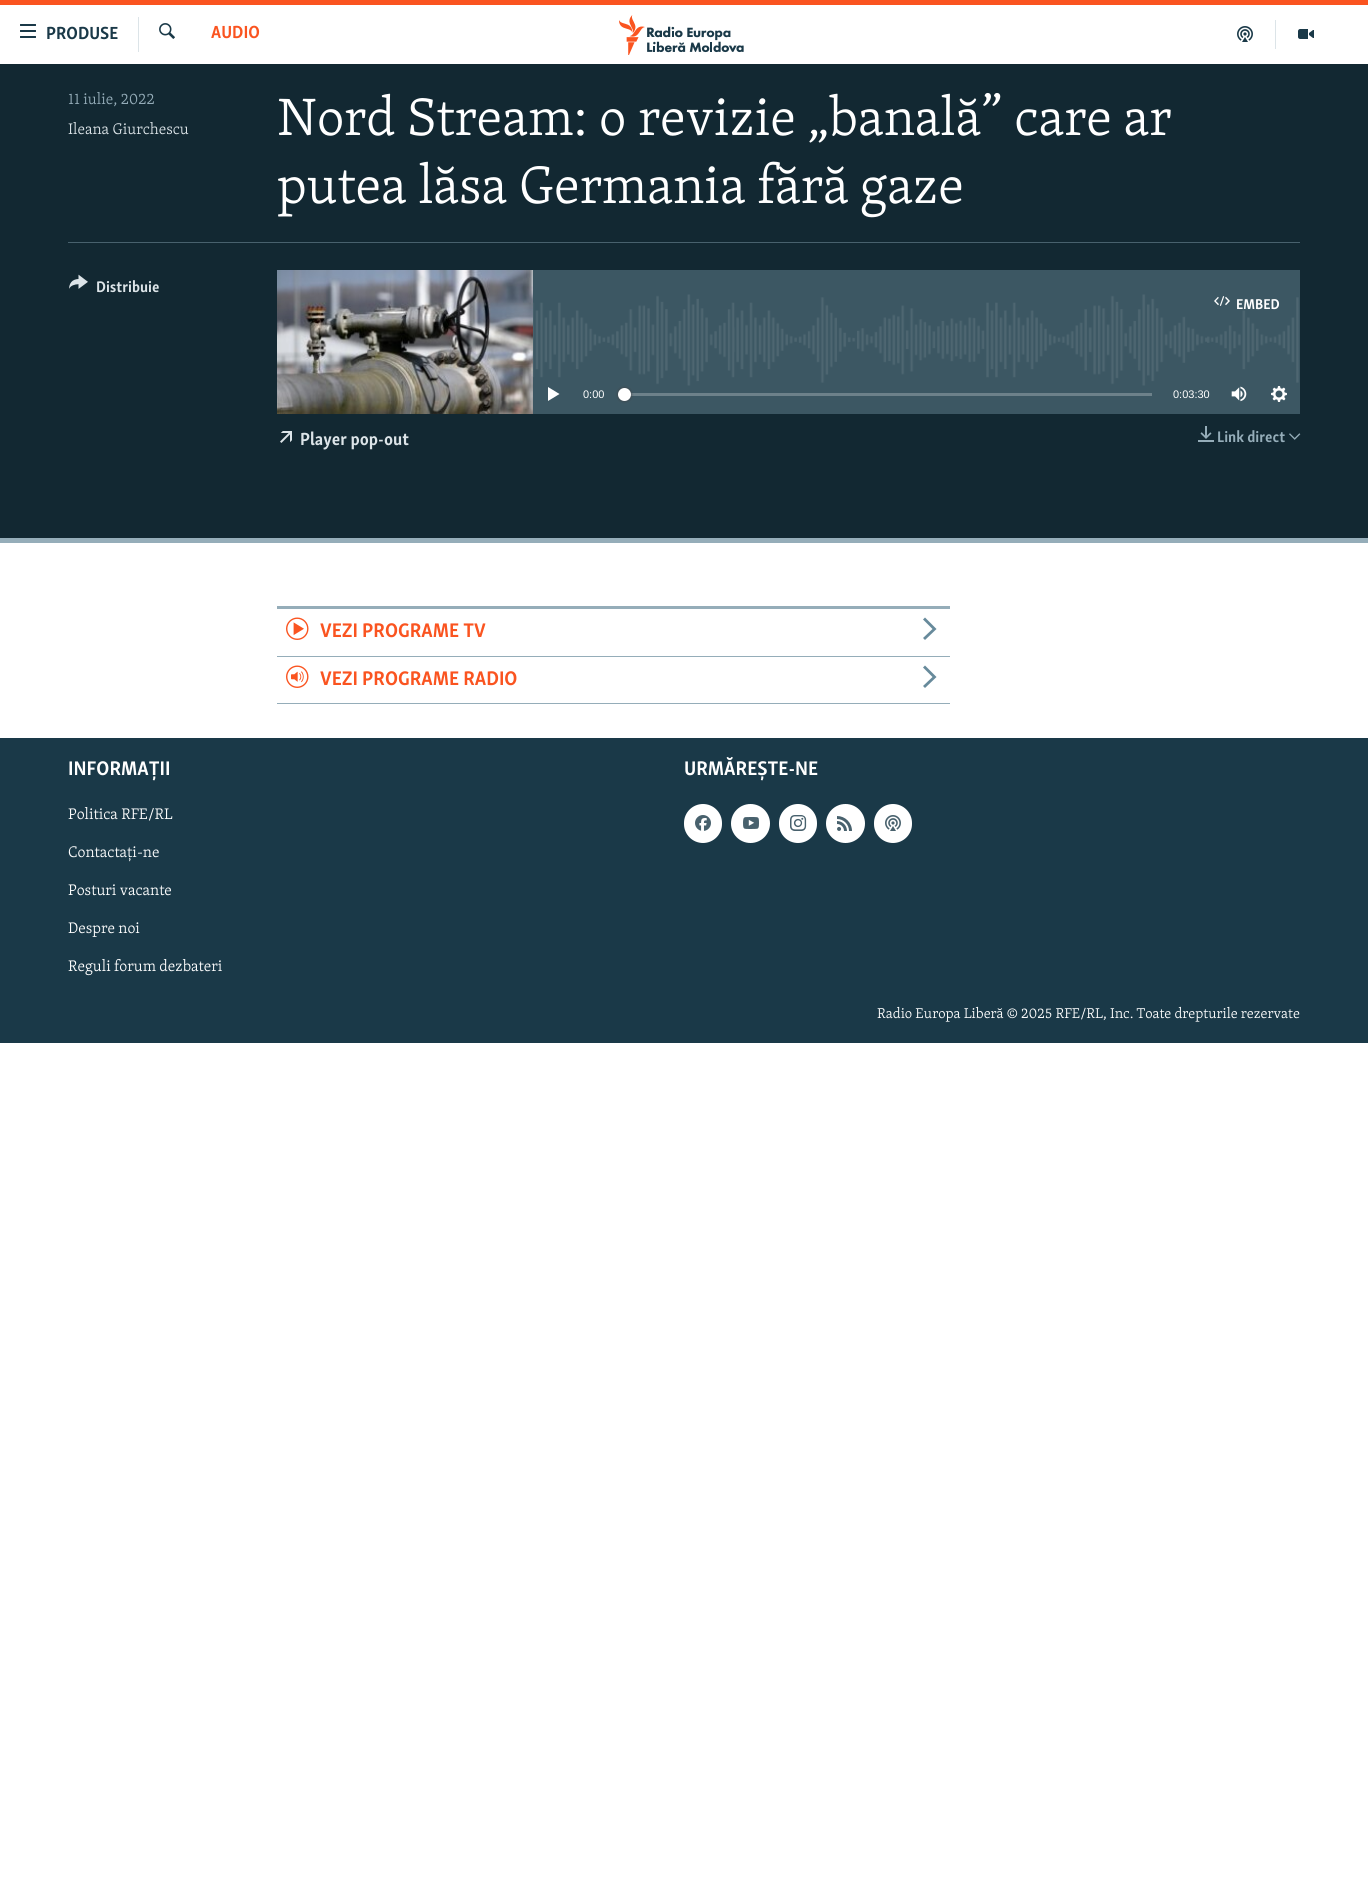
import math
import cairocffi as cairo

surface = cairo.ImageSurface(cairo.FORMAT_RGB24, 1368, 1896)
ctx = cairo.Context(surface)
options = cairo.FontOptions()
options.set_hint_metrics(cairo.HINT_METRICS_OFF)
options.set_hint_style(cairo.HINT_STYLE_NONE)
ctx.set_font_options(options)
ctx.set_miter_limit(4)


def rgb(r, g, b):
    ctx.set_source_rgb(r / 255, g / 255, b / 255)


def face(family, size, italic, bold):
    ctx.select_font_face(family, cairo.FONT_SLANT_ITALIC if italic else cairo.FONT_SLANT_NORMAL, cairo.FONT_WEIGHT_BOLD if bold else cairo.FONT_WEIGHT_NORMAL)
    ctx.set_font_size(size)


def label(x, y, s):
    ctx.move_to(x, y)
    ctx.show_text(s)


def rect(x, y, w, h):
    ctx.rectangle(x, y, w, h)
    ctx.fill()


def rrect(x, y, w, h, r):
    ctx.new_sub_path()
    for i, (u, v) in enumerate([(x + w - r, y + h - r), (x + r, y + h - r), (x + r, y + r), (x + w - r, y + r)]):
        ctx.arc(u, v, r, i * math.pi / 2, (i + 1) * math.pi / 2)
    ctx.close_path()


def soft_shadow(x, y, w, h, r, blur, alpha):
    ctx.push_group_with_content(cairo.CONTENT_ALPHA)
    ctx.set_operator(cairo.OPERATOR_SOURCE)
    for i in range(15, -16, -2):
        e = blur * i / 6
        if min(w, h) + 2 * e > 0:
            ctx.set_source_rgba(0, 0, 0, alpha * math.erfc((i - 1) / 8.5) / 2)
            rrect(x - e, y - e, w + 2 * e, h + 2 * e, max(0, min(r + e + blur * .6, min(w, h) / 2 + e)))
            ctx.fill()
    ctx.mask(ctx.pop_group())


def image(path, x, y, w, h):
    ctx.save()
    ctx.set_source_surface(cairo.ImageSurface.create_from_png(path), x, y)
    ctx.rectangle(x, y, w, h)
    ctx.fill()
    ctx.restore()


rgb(255, 255, 255)
ctx.paint()
rgb(250, 84, 32)
rect(0, 0, 1368, 5)
image('image0.png', 20, 24, 16, 14)
face('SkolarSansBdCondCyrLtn', 18, 0, 1)
rgb(26, 57, 72)
label(46, 39, 'PRODUSE')
rgb(220, 228, 232)
rect(138, 17, 1, 35)
image('image1.png', 159, 23, 16, 16)
rgb(250, 84, 32)
label(211, 38, 'AUDIO')
image('image2.png', 619, 15, 125, 40)
rgb(220, 228, 232)
rect(1275, 20, 1, 29)
image('image3.png', 1237, 26, 16, 16)
image('image4.png', 1298, 29, 16, 10)
rgb(18, 40, 50)
rect(0, 64, 1368, 474)
rgb(149, 173, 185)
rect(0, 538, 1368, 5)
face('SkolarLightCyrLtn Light', 15.75, 0, 0)
label(68, 104, '11 iulie, 2022')
rgb(220, 228, 232)
label(68, 134, 'Ileana Giurchescu')
face('SkolarLightCyrLtn Light', 54, 0, 0)
rgb(255, 255, 255)
label(277, 135, 'Nord Stream: o revizie „banală” care ar')
label(277, 203, 'putea lăsa Germania fără gaze')
rgb(72, 97, 109)
rect(68, 242, 1232, 1)
image('image5.png', 69, 274, 19, 15)
face('SkolarSansBdCondCyrLtn', 15.75, 0, 1)
rgb(220, 228, 232)
label(96, 292, 'Distribuie')
rgb(60, 87, 99)
rect(533, 270, 767, 144)
image('image6.png', 533, 294, 766, 92)
image('image7.png', 277, 270, 256, 144)
image('image8.png', 1214, 296, 16, 10)
face('SkolarSansBdCondCyrLtn', 14.6, 0, 1)
rgb(255, 255, 255)
label(1236, 309, 'EMBED')
ctx.new_path()
ctx.move_to(548, 401)
ctx.line_to(559.5, 394)
ctx.line_to(548, 387)
ctx.close_path()
ctx.fill()
face('Liberation Sans', 11, 0, 0)
label(583, 398, '0:00')
rgb(109, 129, 138)
rect(624, 393, 528, 3)
rgb(65, 65, 68)
soft_shadow(618, 388, 13, 13, 6.5, 1.5, 1)
rgb(255, 255, 255)
ctx.arc(624.5, 394.5, 6.5, 0, 2 * math.pi)
ctx.fill()
label(1173, 398, '0:03:30')
image('image9.png', 1231, 386, 16, 16)
image('image10.png', 1271, 386, 16, 16)
image('image11.png', 280, 431, 12, 12)
face('SkolarSansBdCondCyrLtn', 18, 0, 1)
rgb(220, 228, 232)
label(300, 445, 'Player pop-out')
image('image12.png', 1198, 426, 16, 16)
face('SkolarSansBdCondCyrLtn', 15.75, 0, 1)
rgb(149, 173, 185)
label(1217, 442, 'Link direct')
image('image13.png', 1289, 433, 12, 7)
rect(277, 606, 673, 3)
rect(277, 656, 673, 1)
image('image14.png', 286, 617, 23, 23)
face('SkolarSansBdCondCyrLtn', 20.25, 0, 1)
rgb(250, 84, 32)
label(320, 637, 'VEZI PROGRAME TV')
rgb(103, 138, 155)
ctx.new_path()
ctx.move_to(925, 640)
ctx.line_to(936.5, 629)
ctx.line_to(925, 617.5)
ctx.line_to(923, 619.5)
ctx.line_to(932.5, 629)
ctx.line_to(923, 638)
ctx.close_path()
ctx.fill()
rgb(149, 173, 185)
rect(277, 703, 673, 1)
image('image15.png', 286, 665, 23, 23)
rgb(250, 84, 32)
label(320, 685, 'VEZI PROGRAME RADIO')
rgb(103, 138, 155)
ctx.new_path()
ctx.move_to(925, 688)
ctx.line_to(936.5, 677)
ctx.line_to(925, 665.5)
ctx.line_to(923, 667.5)
ctx.line_to(932.5, 677)
ctx.line_to(923, 686)
ctx.close_path()
ctx.fill()
rgb(26, 57, 72)
rect(0, 738, 1368, 305)
rgb(255, 255, 255)
label(68, 775, 'INFORMAȚII')
face('SkolarLightCyrLtn Light', 15.75, 0, 0)
label(68, 819, 'Politica RFE/RL')
label(68, 857, 'Contactați-ne')
label(68, 895, 'Posturi vacante')
label(68, 933, 'Despre noi')
label(68, 971, 'Reguli forum dezbateri')
face('SkolarSansBdCondCyrLtn', 20.25, 0, 1)
label(684, 775, 'URMĂREȘTE-NE')
rrect(684, 804, 38, 39, 19)
ctx.fill()
image('image16.png', 695, 815, 16, 16)
ctx.arc(750.5, 823.5, 19.5, 0, 2 * math.pi)
ctx.fill()
image('image17.png', 743, 817, 16, 12)
rrect(779, 804, 38, 39, 19)
ctx.fill()
image('image18.png', 790, 815, 17, 16)
ctx.arc(845.5, 823.5, 19.5, 0, 2 * math.pi)
ctx.fill()
image('image19.png', 837, 816, 15, 15)
rrect(874, 804, 38, 39, 19)
ctx.fill()
image('image20.png', 885, 815, 16, 16)
face('SkolarLightCyrLtn Light', 14.6, 0, 0)
label(877, 1018, 'Radio Europa Liberă © 2025 RFE/RL, Inc. Toate drepturile rezervate')
surface.write_to_png('render.png')
